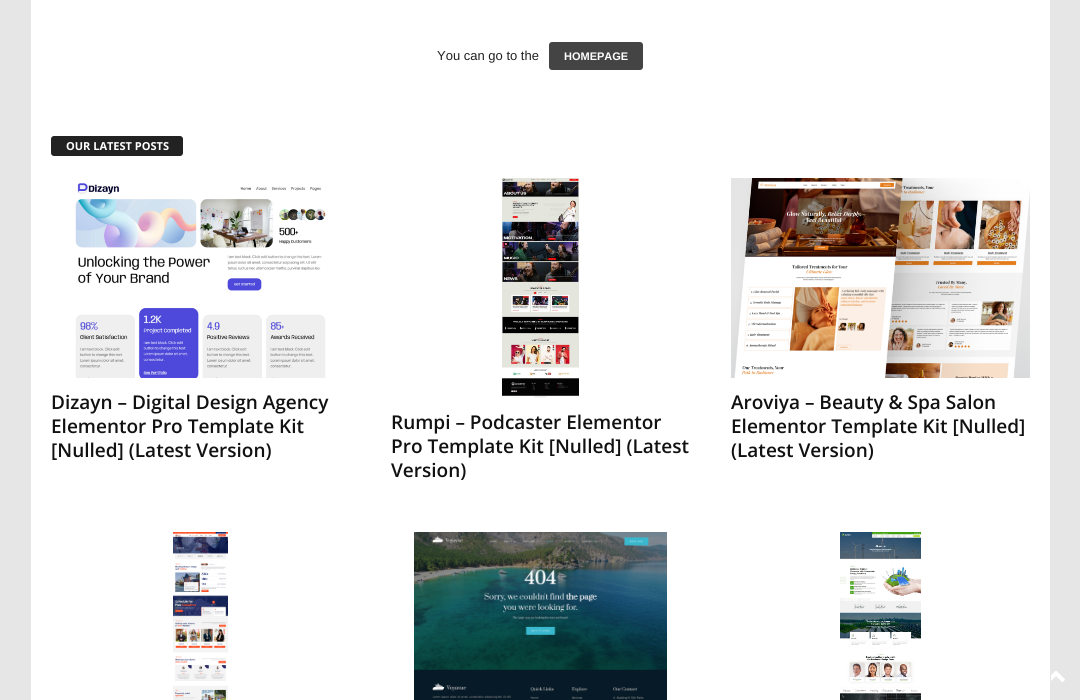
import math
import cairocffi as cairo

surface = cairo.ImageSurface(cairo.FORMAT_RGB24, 1080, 700)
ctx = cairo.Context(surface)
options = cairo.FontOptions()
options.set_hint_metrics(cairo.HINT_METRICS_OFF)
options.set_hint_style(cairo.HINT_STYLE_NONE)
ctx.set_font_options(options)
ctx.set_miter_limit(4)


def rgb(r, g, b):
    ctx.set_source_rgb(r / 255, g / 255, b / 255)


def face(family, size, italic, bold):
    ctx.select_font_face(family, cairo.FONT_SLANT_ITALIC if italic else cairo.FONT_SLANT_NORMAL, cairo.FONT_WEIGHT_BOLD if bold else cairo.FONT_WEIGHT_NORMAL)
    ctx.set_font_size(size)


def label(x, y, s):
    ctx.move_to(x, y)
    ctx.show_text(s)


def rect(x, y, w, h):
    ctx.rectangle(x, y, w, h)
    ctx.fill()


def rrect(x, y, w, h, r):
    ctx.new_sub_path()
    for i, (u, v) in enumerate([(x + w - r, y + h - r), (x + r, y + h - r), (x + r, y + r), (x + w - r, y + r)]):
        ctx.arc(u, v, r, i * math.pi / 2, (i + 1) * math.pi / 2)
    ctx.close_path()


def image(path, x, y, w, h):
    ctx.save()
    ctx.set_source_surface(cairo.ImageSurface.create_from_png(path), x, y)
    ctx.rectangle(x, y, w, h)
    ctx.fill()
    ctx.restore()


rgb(230, 230, 230)
ctx.paint()
rgb(255, 255, 255)
rect(31, 0, 1019, 700)
face('Liberation Sans', 13, 0, 0)
rgb(34, 34, 34)
label(437, 60, 'You can go to the')
rgb(68, 68, 68)
rrect(549, 42, 94, 28, 3)
ctx.fill()
face('Liberation Sans', 11, 0, 1)
rgb(255, 255, 255)
label(564, 60, 'HOMEPAGE')
rgb(34, 34, 34)
rrect(51, 136, 132, 20, 3)
ctx.fill()
face('Open Sans', 11, 0, 1)
rgb(255, 255, 255)
label(66, 150, 'OUR LATEST POSTS')
image('image0.png', 75, 183, 251, 195)
face('Open Sans SemiBold', 19, 0, 0)
rgb(17, 17, 17)
label(51, 409, 'Dizayn – Digital Design Agency')
label(51, 433, 'Elementor Pro Template Kit')
label(51, 457, '[Nulled] (Latest Version)')
image('image1.png', 502, 178, 77, 220)
label(391, 429, 'Rumpi – Podcaster Elementor')
label(391, 453, 'Pro Template Kit [Nulled] (Latest')
label(391, 477, 'Version)')
image('image2.png', 731, 178, 299, 200)
label(731, 409, 'Aroviya – Beauty & Spa Salon')
label(731, 433, 'Elementor Template Kit [Nulled]')
label(731, 457, '(Latest Version)')
image('image3.png', 173, 532, 55, 168)
image('image4.png', 414, 532, 253, 168)
image('image5.png', 840, 532, 81, 168)
image('image6.png', 1051, 670, 14, 12)
surface.write_to_png('render.png')
